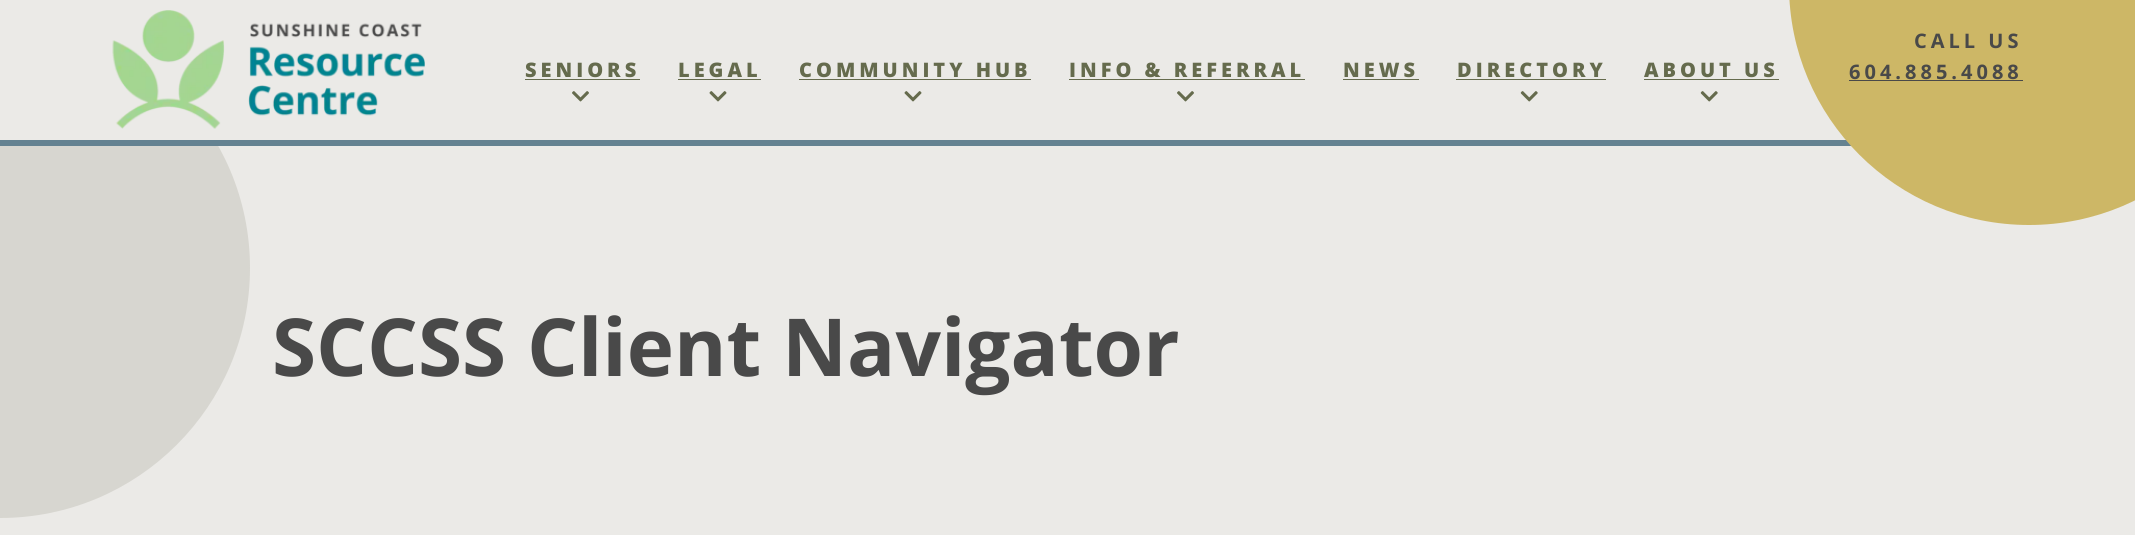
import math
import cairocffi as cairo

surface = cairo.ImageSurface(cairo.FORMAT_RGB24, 2135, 535)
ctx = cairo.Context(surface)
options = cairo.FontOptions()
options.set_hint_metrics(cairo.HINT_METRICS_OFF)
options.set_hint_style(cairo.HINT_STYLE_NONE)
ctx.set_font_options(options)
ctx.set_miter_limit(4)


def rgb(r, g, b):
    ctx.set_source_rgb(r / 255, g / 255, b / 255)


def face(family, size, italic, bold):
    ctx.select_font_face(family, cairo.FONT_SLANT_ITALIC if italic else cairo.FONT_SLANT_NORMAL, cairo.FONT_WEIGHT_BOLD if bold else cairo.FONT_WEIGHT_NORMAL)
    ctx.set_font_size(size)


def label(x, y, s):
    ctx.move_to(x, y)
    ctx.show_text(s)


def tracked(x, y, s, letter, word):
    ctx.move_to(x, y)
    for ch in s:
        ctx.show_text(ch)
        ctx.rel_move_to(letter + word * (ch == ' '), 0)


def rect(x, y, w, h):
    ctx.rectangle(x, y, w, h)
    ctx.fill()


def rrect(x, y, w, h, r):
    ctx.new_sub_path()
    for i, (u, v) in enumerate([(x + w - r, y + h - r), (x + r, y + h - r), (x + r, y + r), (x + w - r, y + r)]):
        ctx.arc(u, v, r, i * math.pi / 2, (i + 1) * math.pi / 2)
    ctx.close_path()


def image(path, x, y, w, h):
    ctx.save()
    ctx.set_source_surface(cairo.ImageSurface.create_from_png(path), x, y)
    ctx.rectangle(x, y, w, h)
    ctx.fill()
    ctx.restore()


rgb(235, 234, 231)
ctx.paint()
rgb(215, 214, 208)
ctx.arc(0, 268, 250, 0, 2 * math.pi)
ctx.fill()
rgb(235, 234, 231)
rect(0, 18, 215, 122)
rgb(100, 130, 145)
rect(0, 140, 1851, 6)
image('image0.png', 112, 10, 313, 119)
face('Open Sans ExtraBold', 20, 0, 0)
rgb(101, 107, 77)
tracked(525, 77, 'SENIORS', 4, 0)
rect(525, 79, 115, 1)
image('image1.png', 572, 91, 17, 11)
tracked(678, 77, 'LEGAL', 4, 0)
rect(678, 79, 83, 1)
image('image2.png', 709, 91, 18, 11)
tracked(799, 77, 'COMMUNITY HUB', 4, 0)
rect(799, 79, 232, 1)
image('image2.png', 904, 91, 18, 11)
tracked(1069, 77, 'INFO & REFERRAL', 4, 0)
rect(1069, 79, 236, 1)
image('image1.png', 1177, 91, 17, 11)
tracked(1343, 77, 'NEWS', 4, 0)
rect(1343, 79, 76, 1)
tracked(1457, 77, 'DIRECTORY', 4, 0)
rect(1456, 79, 150, 1)
image('image3.png', 1520, 91, 18, 11)
tracked(1644, 77, 'ABOUT US', 4, 0)
rect(1644, 79, 135, 1)
image('image3.png', 1700, 91, 18, 11)
rgb(205, 183, 102)
rrect(1789, -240, 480, 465, 240)
ctx.fill()
face('Open Sans', 20, 0, 1)
rgb(73, 73, 73)
tracked(1914, 48, 'CALL US', 4, 0)
tracked(1849, 79, '604.885.4088', 4, 0)
rect(1849, 80, 174, 1)
face('Open Sans', 80, 0, 1)
label(272, 376, 'SCCSS Client Navigator')
surface.write_to_png('render.png')
